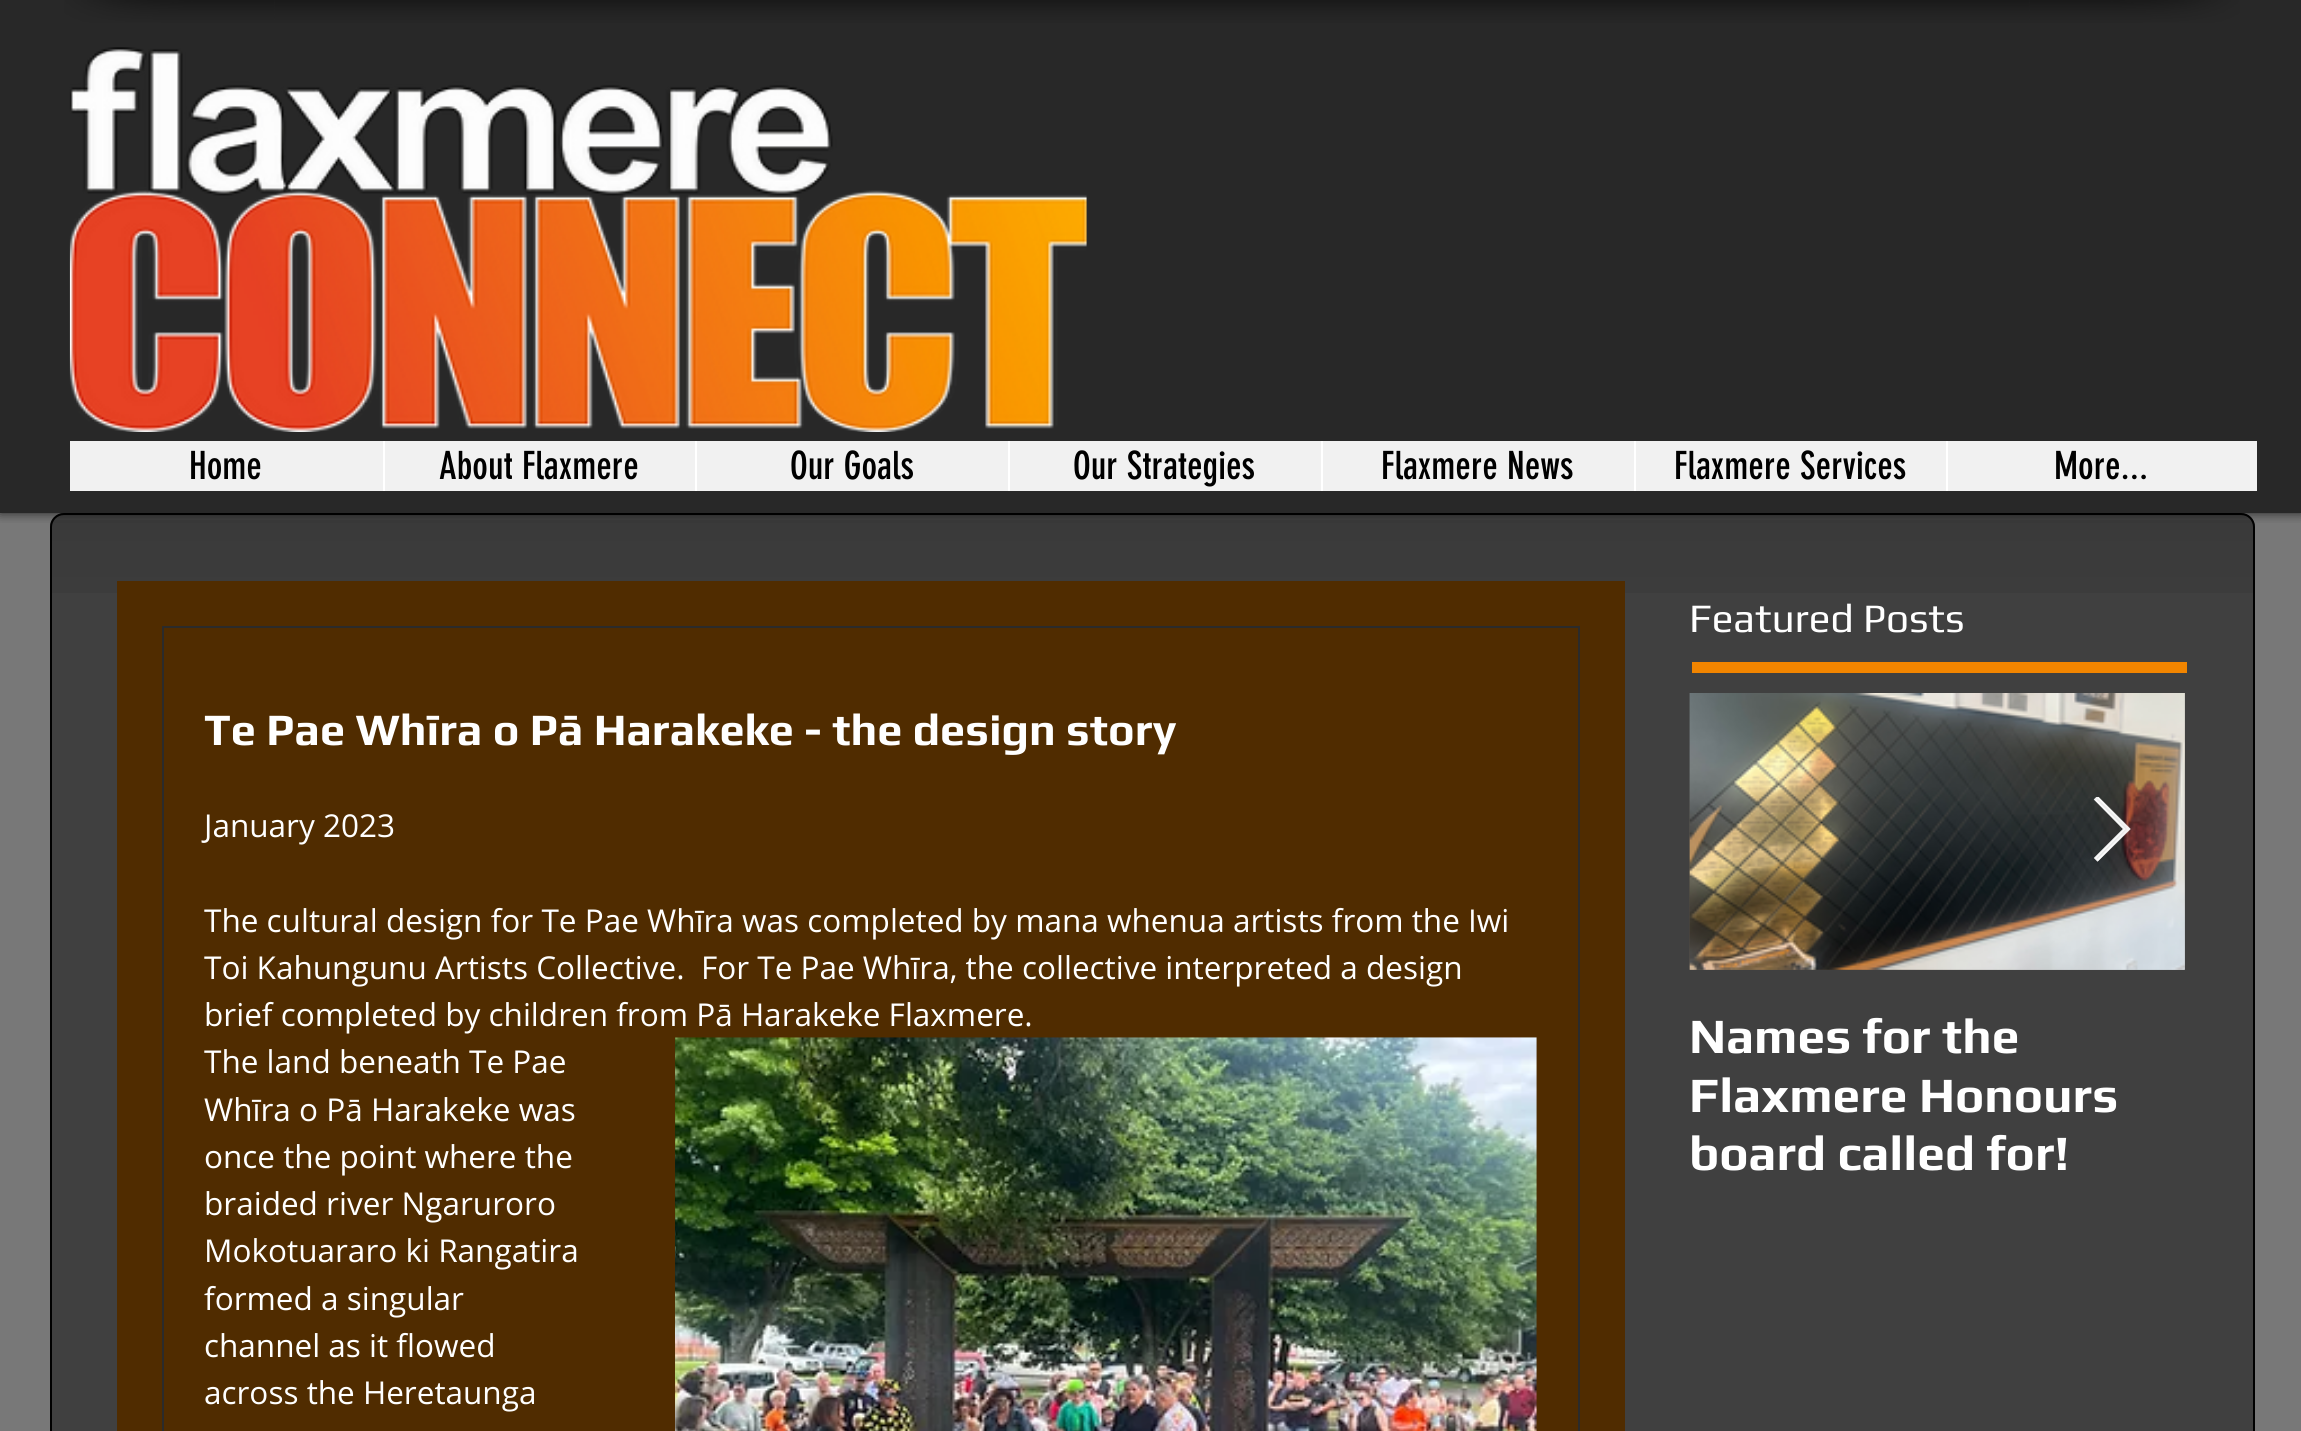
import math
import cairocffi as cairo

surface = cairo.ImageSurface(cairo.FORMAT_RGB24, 2301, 1431)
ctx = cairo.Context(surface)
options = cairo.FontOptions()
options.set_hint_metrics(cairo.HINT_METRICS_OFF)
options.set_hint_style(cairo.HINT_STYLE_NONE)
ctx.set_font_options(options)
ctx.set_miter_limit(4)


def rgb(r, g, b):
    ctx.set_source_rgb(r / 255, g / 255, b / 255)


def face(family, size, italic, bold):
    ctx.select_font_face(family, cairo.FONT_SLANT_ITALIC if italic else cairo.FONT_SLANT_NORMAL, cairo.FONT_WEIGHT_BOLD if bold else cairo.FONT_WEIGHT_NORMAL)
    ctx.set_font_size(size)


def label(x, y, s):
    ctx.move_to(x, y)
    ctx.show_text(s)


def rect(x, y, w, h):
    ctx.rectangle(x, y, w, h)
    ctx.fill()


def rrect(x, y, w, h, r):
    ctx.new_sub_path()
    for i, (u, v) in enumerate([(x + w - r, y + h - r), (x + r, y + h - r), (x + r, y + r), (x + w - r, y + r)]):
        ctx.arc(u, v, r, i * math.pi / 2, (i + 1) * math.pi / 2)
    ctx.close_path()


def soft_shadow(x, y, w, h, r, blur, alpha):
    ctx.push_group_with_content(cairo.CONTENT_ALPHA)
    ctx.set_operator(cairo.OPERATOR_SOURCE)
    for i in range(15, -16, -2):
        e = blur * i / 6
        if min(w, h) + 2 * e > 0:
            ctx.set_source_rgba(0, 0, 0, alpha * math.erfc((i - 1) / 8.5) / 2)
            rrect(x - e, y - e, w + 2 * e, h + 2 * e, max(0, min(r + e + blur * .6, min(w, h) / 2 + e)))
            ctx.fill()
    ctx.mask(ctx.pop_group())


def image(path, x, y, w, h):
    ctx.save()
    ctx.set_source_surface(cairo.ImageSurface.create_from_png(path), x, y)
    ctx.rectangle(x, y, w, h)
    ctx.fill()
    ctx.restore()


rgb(120, 120, 120)
ctx.paint()
rgb(40, 40, 40)
rect(0, 0, 2301, 513)
image('image0.png', 64, 0, 211, 23)
image('image1.png', 274, 0, 1756, 23)
image('image2.png', 2029, 0, 211, 23)
rgb(64, 64, 64)
rrect(50, 513, 2205, 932, 14)
ctx.fill()
image('image4.png', 50, 520, 2204, 73)
rrect(51, 514, 2203, 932, 13)
rgb(0, 0, 0)
ctx.stroke()
ctx.save()
ctx.rectangle(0, 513, 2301, 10)
ctx.clip()
rgb(0, 0, 0)
soft_shadow(0, 0, 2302, 513, 0, 5.5, 0.7)
ctx.restore()
image('image3.png', 69, 47, 1018, 385)
rgb(241, 241, 241)
rect(70, 441, 2187, 50)
face('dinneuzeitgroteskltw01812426', 38.25, 0, 0)
rgb(0, 0, 0)
label(189, 479, 'Home')
rgb(255, 255, 255)
rect(383, 441, 2, 50)
rgb(0, 0, 0)
label(439, 479, 'About Flaxmere')
rgb(255, 255, 255)
rect(695, 441, 2, 50)
rgb(0, 0, 0)
label(790, 479, 'Our Goals')
rgb(255, 255, 255)
rect(1008, 441, 2, 50)
rgb(0, 0, 0)
label(1073, 479, 'Our Strategies')
rgb(255, 255, 255)
rect(1321, 441, 2, 50)
rgb(0, 0, 0)
label(1381, 479, 'Flaxmere News')
rgb(255, 255, 255)
rect(1634, 441, 2, 50)
rgb(0, 0, 0)
label(1674, 479, 'Flaxmere Services')
rgb(255, 255, 255)
rect(1946, 441, 2, 50)
rgb(0, 0, 0)
label(2054, 479, 'More...')
face('Play', 40.5, 0, 0)
rgb(255, 255, 255)
label(1689, 632, 'Featured Posts')
rgb(242, 133, 0)
rect(1692, 662, 495, 11)
rgb(80, 44, 0)
rect(117, 581, 1508, 850)
ctx.rectangle(163, 627, 1416, 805)
rgb(43, 43, 43)
ctx.stroke()
face('Play', 45, 0, 1)
rgb(255, 255, 255)
label(204, 745, 'Te Pae Whīra o Pā Harakeke - the design story')
face('Open Sans', 31.5, 0, 0)
label(204, 837, 'January 2023')
label(204, 932, 'The cultural design for Te Pae Whīra was completed by mana whenua artists from the Iwi')
label(204, 979, 'Toi Kahungunu Artists Collective.  For Te Pae Whīra, the collective interpreted a design')
label(204, 1026, 'brief completed by children from Pā Harakeke Flaxmere.')
label(204, 1073, 'The land beneath Te Pae')
label(204, 1121, 'Whīra o Pā Harakeke was')
label(204, 1168, 'once the point where the')
label(204, 1215, 'braided river Ngaruroro')
label(204, 1262, 'Mokotuararo ki Rangatira')
label(204, 1310, 'formed a singular')
label(204, 1357, 'channel as it flowed')
label(204, 1404, 'across the Heretaunga')
image('image5.png', 675, 1037, 862, 394)
image('image6.png', 1689, 693, 496, 277)
image('image7.png', 1689, 693, 496, 277)
ctx.set_source_rgba(1, 1, 1, 0.9)
ctx.new_path()
ctx.move_to(2095, 800)
ctx.line_to(2098, 797)
ctx.line_to(2129, 829)
ctx.line_to(2098, 861)
ctx.line_to(2095, 858)
ctx.line_to(2124, 829)
ctx.close_path()
ctx.fill()
ctx.save()
ctx.rectangle(2090, 797, 43, 69)
ctx.clip()
ctx.new_path()
ctx.move_to(2095, 799.5)
ctx.line_to(2097.5, 797)
ctx.line_to(2129.5, 829)
ctx.line_to(2097.5, 860.5)
ctx.line_to(2095, 858)
ctx.line_to(2124, 829)
ctx.close_path()
ctx.set_line_width(1.8)
ctx.stroke()
ctx.restore()
face('Play', 49.5, 0, 1)
rgb(255, 255, 255)
label(1689, 1053, 'Names for the')
label(1689, 1112, 'Flaxmere Honours')
label(1689, 1170, 'board called for!')
surface.write_to_png('render.png')
